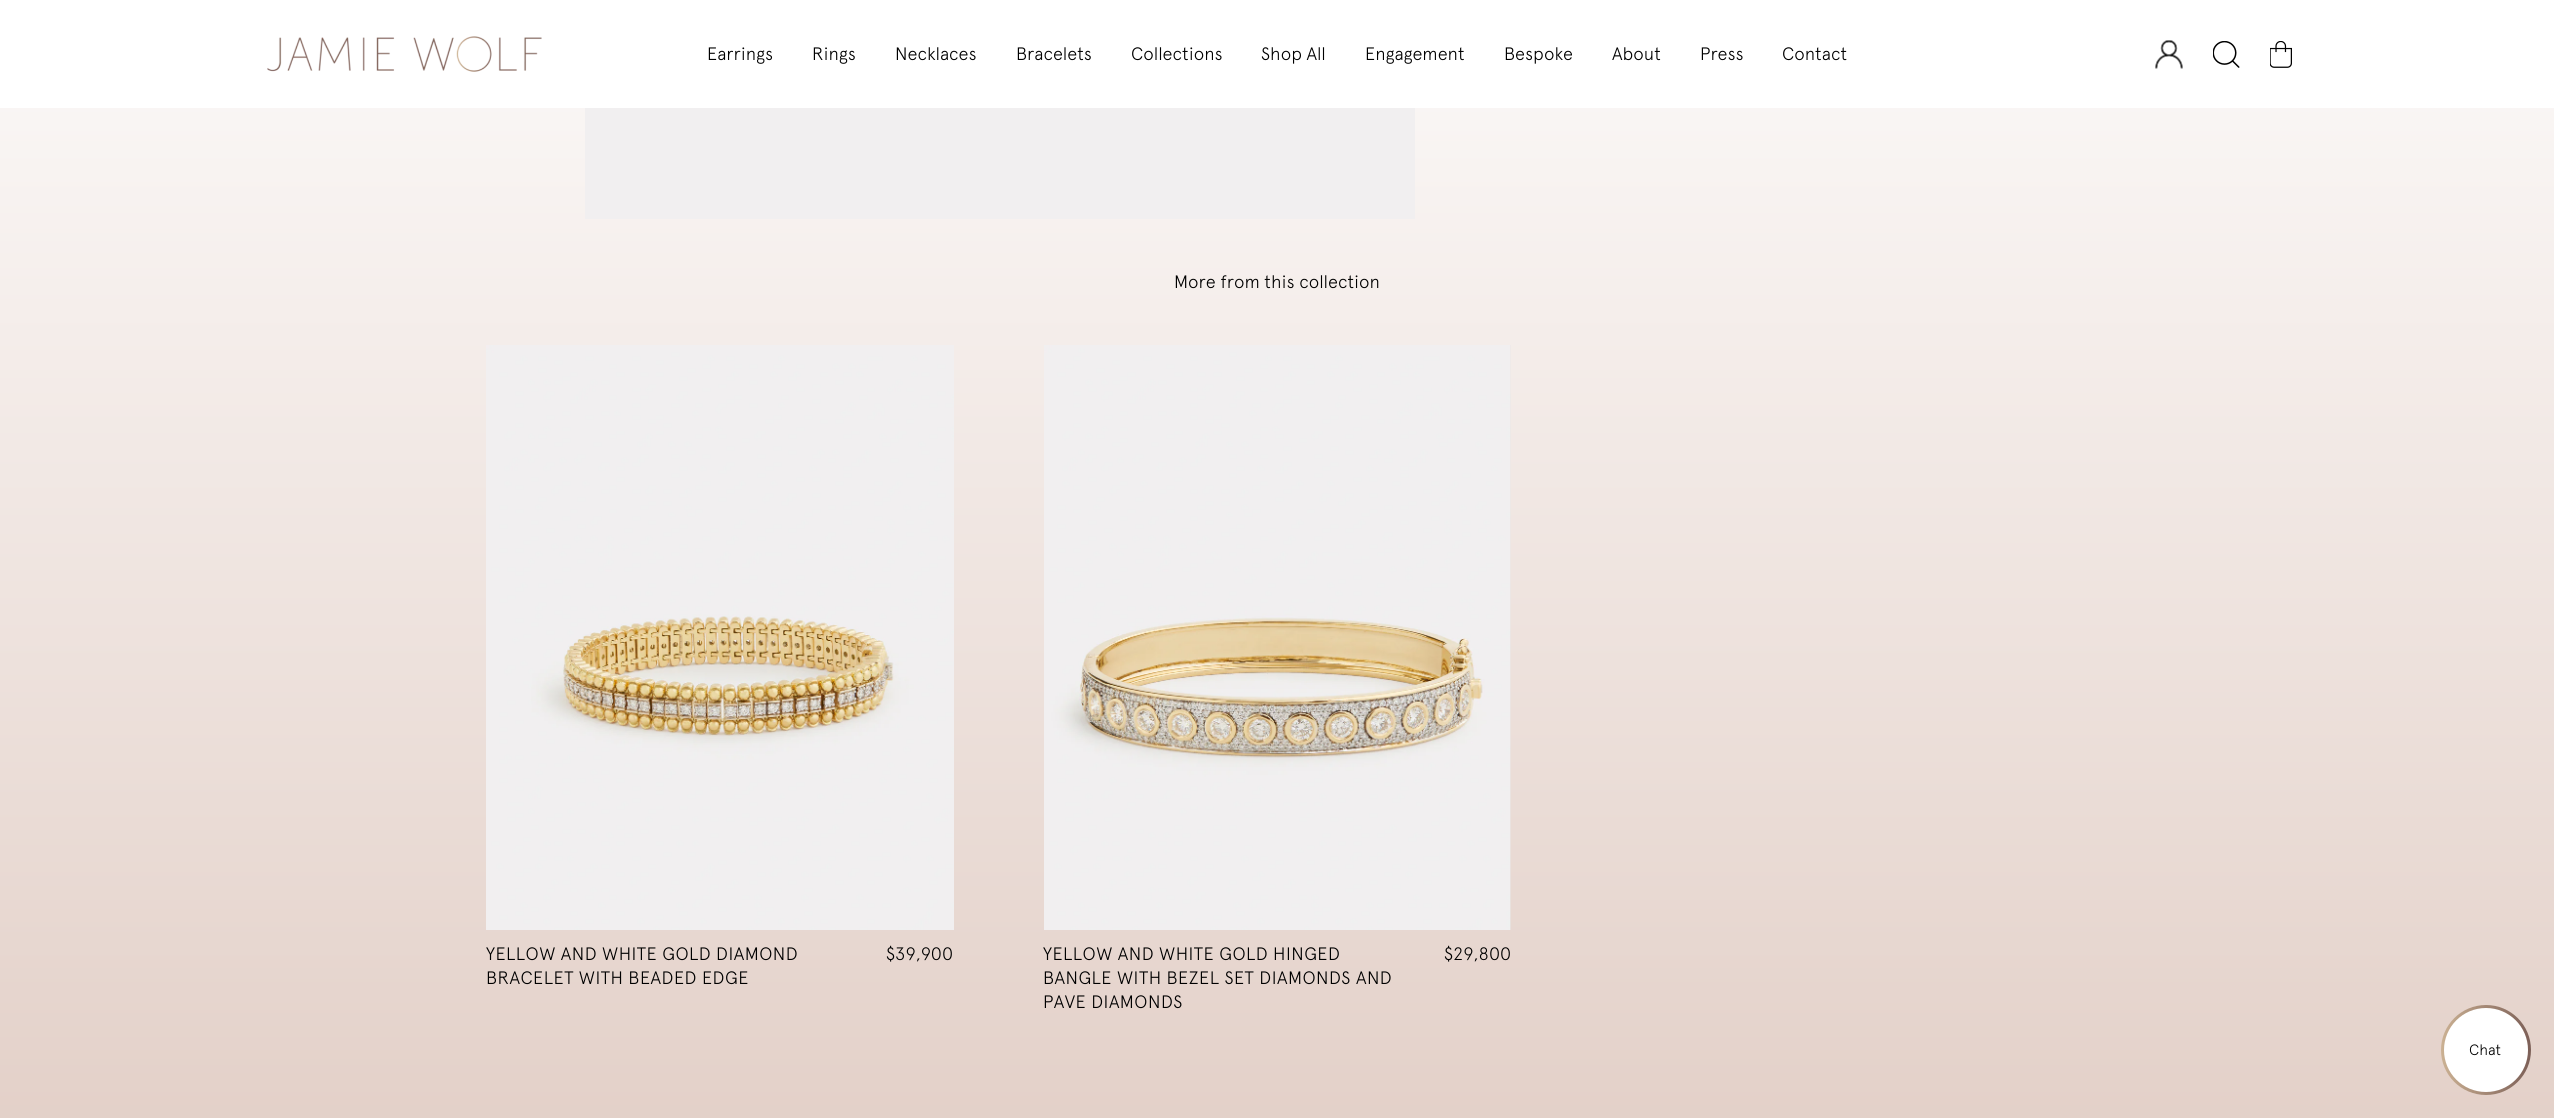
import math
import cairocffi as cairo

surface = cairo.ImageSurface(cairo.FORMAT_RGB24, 2554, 1118)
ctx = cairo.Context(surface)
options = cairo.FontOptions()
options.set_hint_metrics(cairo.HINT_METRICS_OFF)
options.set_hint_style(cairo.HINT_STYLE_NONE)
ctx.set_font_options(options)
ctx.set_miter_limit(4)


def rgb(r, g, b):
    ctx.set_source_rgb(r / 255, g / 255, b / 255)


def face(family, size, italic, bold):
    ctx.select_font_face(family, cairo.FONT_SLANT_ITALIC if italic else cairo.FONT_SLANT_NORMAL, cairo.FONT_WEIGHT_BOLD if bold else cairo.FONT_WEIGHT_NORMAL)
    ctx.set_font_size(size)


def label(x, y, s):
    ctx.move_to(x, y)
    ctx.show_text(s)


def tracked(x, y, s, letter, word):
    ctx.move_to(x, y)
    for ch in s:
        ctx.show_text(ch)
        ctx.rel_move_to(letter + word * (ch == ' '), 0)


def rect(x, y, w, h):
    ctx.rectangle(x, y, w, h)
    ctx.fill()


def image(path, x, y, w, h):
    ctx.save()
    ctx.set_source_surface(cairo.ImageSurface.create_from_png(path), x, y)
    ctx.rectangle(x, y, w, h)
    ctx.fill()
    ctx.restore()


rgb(255, 255, 255)
ctx.paint()
gradient = cairo.LinearGradient(1277, -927, 1277, 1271)
gradient.add_color_stop_rgba(0, 1, 1, 1, 1)
gradient.add_color_stop_rgba(0.35, 1, 1, 1, 1)
gradient.add_color_stop_rgba(1, 0.878, 0.796, 0.761, 1)
ctx.set_source(gradient)
rect(0, 108, 2554, 1010)
gradient = cairo.LinearGradient(1277, -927, 1277, 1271)
gradient.add_color_stop_rgba(0, 0.969, 0.969, 0.969, 1)
gradient.add_color_stop_rgba(0.35, 0.969, 0.969, 0.969, 1)
gradient.add_color_stop_rgba(1, 0.851, 0.773, 0.737, 1)
ctx.set_source(gradient)
rect(1510, 345, 1, 585)
image('image0.png', 267, 36, 275, 36)
face('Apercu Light', 18, 0, 0)
rgb(0, 0, 0)
label(707, 60, 'Earrings')
label(812, 60, 'Rings')
label(895, 60, 'Necklaces')
label(1016, 60, 'Bracelets')
label(1131, 60, 'Collections')
label(1261, 60, 'Shop All')
label(1365, 60, 'Engagement')
label(1504, 60, 'Bespoke')
label(1612, 60, 'About')
label(1700, 60, 'Press')
label(1782, 60, 'Contact')
image('image1.png', 2155, 40, 28, 29)
image('image2.png', 2213, 41, 27, 27)
image('image3.png', 2270, 41, 22, 27)
rgb(241, 239, 240)
rect(585, 108, 830, 111)
rgb(0, 0, 0)
label(1174, 288, 'More from this collection')
image('image4.png', 486, 345, 468, 585)
tracked(486, 960, 'YELLOW AND WHITE GOLD DIAMOND', 0.45, 0)
tracked(486, 984, 'BRACELET WITH BEADED EDGE', 0.45, 0)
label(886, 960, '$39,900')
image('image5.png', 1044, 345, 467, 585)
tracked(1043, 960, 'YELLOW AND WHITE GOLD HINGED', 0.45, 0)
tracked(1043, 984, 'BANGLE WITH BEZEL SET DIAMONDS AND', 0.45, 0)
tracked(1043, 1008, 'PAVE DIAMONDS', 0.45, 0)
label(1444, 960, '$29,800')
gradient = cairo.LinearGradient(2441, 1050, 2531, 1050)
gradient.add_color_stop_rgba(0, 0.796, 0.694, 0.576, 1)
gradient.add_color_stop_rgba(1, 0.486, 0.373, 0.341, 1)
ctx.set_source(gradient)
ctx.new_path()
ctx.arc(2486, 1050, 45, 0, 2 * math.pi)
ctx.fill()
rgb(255, 255, 255)
ctx.arc(2486, 1050, 42, 0, 2 * math.pi)
ctx.fill()
face('Apercu Light', 15, 0, 0)
rgb(0, 0, 0)
label(2469, 1055, 'Chat')
surface.write_to_png('render.png')
